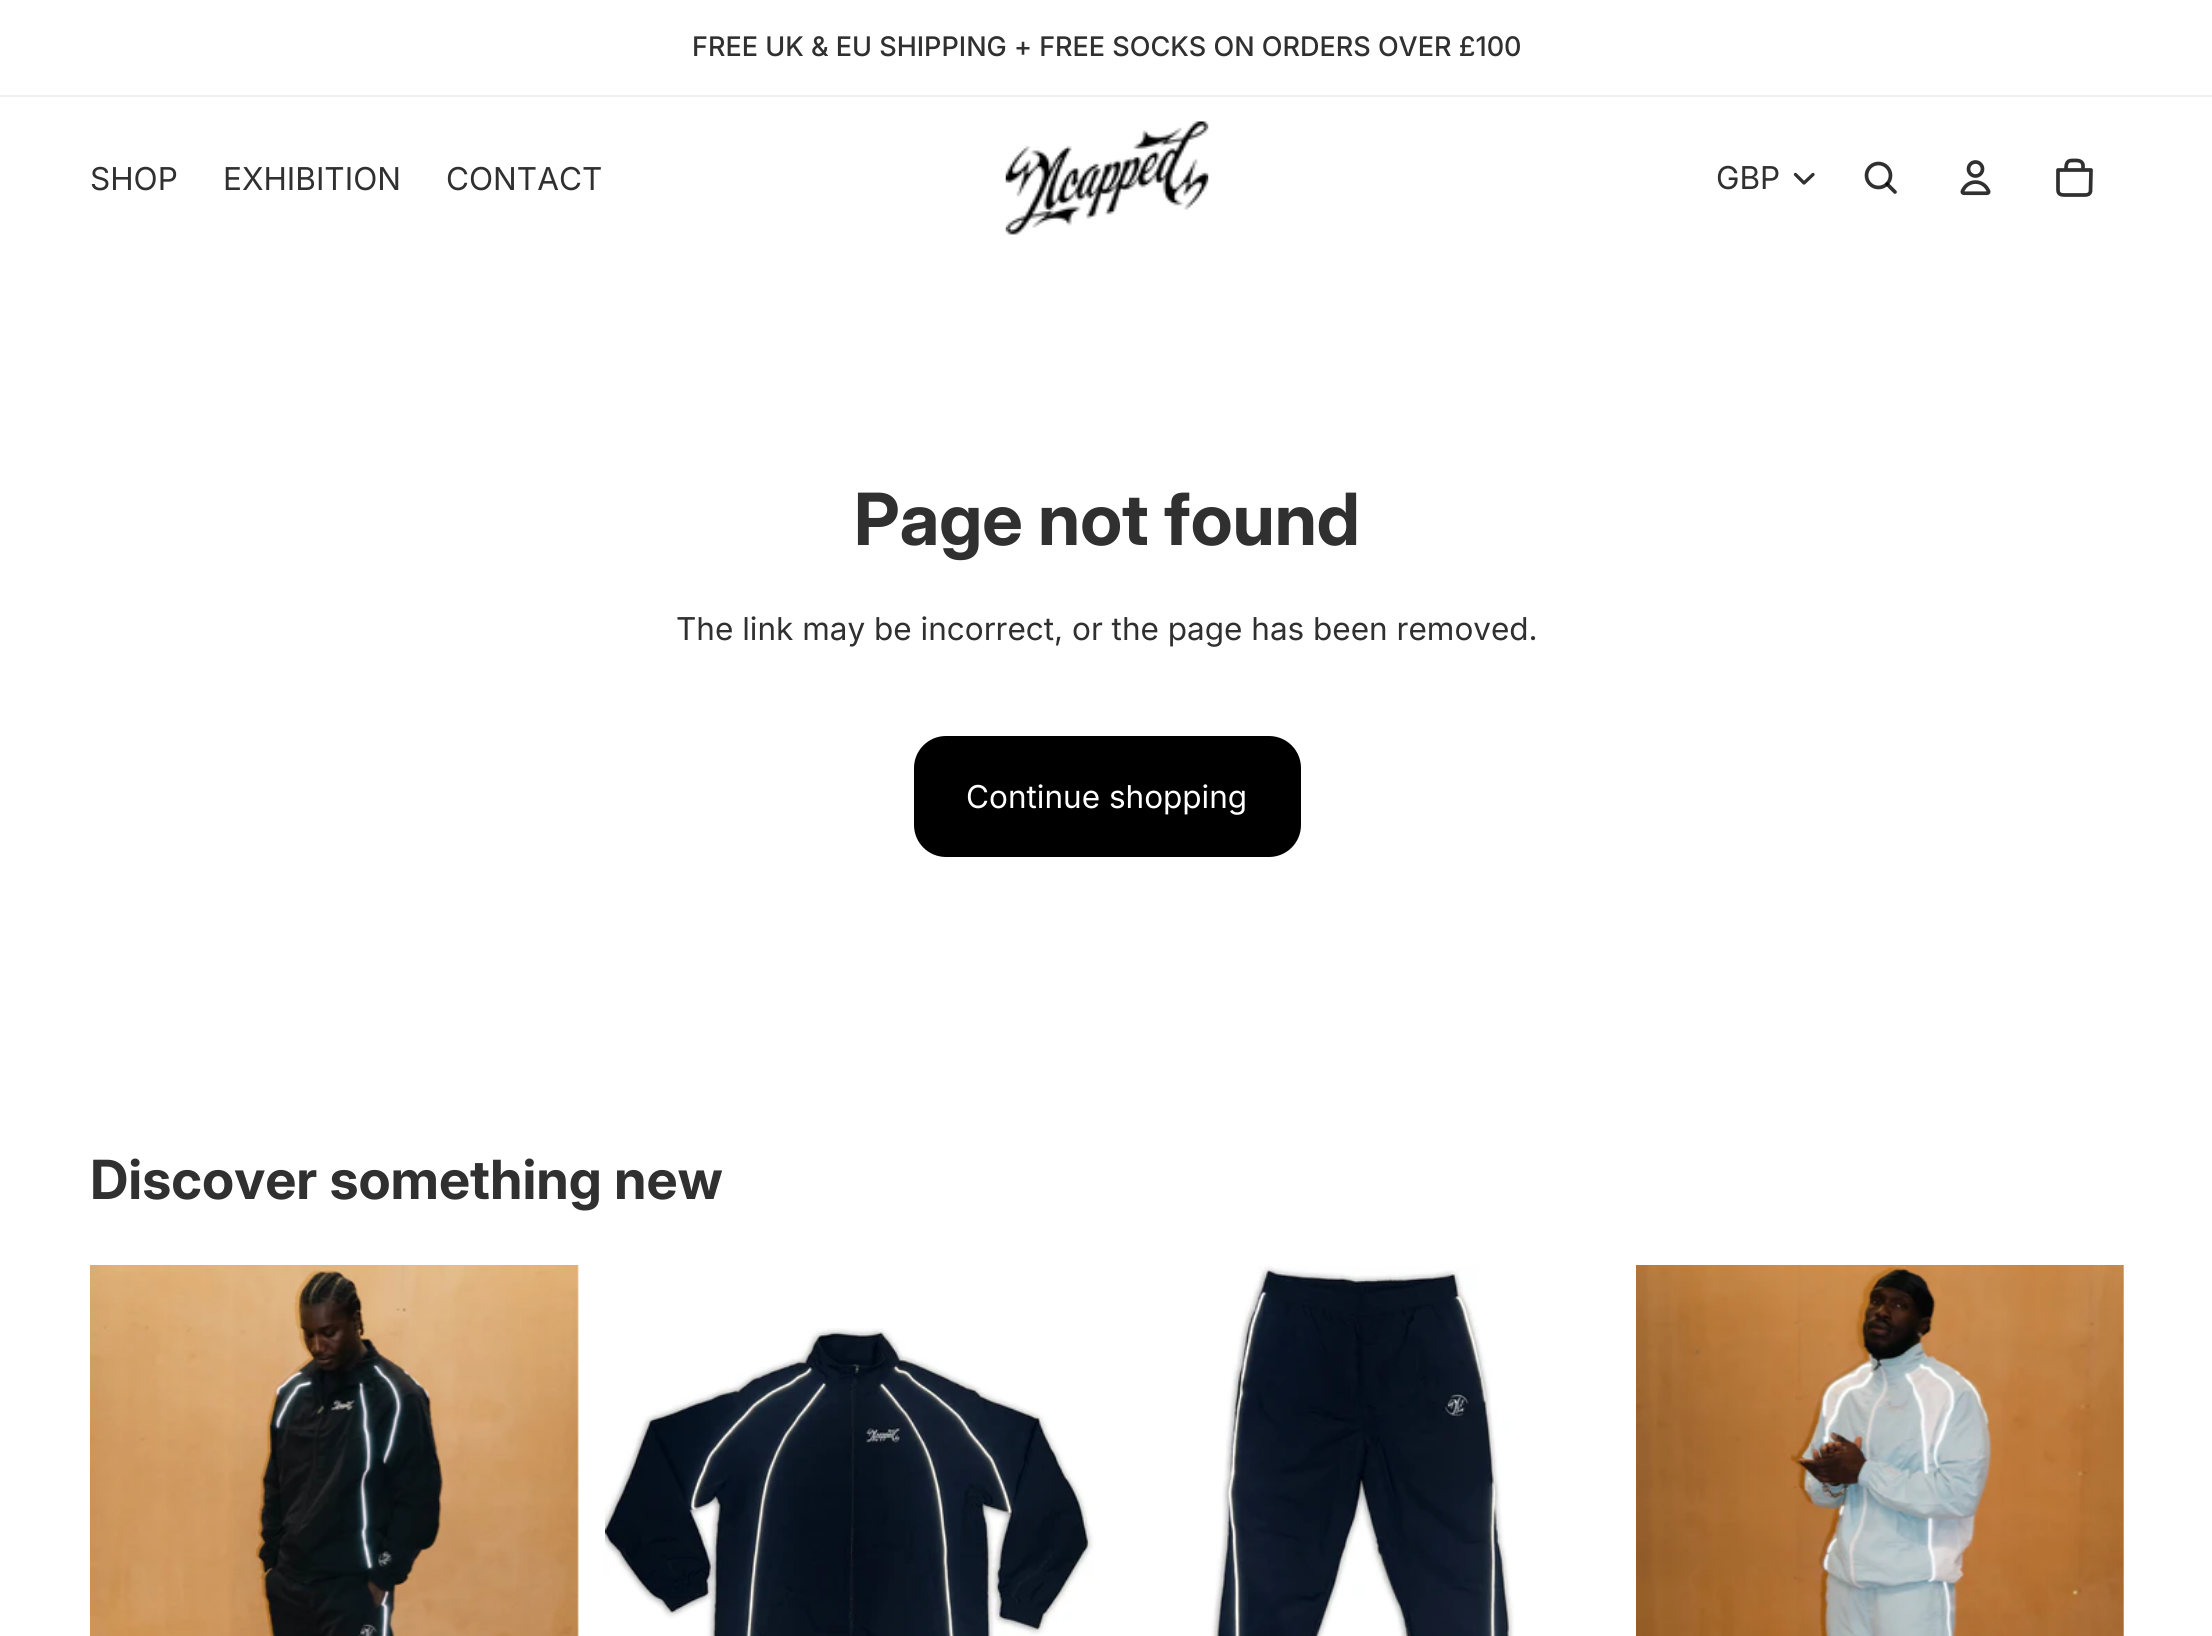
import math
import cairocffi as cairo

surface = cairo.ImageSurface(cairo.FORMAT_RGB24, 2212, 1636)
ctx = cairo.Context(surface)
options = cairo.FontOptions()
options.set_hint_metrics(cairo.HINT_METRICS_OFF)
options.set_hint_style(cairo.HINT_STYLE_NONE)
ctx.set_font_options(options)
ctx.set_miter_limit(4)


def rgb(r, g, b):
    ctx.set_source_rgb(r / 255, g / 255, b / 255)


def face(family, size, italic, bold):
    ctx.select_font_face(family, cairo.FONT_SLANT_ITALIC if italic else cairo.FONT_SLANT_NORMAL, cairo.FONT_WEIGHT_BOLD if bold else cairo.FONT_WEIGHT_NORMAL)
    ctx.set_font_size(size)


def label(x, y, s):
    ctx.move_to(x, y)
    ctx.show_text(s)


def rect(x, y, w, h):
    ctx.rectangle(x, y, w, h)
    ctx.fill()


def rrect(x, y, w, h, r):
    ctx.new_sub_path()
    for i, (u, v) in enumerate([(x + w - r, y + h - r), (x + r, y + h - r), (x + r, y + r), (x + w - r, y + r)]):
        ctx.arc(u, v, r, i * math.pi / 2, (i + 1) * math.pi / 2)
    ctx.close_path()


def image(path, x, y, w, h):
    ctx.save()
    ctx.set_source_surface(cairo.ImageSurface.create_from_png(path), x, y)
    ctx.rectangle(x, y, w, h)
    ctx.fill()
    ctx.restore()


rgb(255, 255, 255)
ctx.paint()
rgb(240, 240, 240)
rect(0, 95, 2212, 2)
face('Inter Medium', 27, 0, 0)
rgb(48, 48, 48)
label(692, 56, 'FREE UK & EU SHIPPING + FREE SOCKS ON ORDERS OVER £100')
face('Inter', 31.5, 0, 0)
label(90, 190, 'SHOP')
label(223, 190, 'EXHIBITION')
label(446, 190, 'CONTACT')
image('image0.png', 1005, 121, 204, 114)
label(1716, 189, 'GBP')
ctx.new_path()
ctx.move_to(1813, 174.5)
ctx.line_to(1804, 183)
ctx.line_to(1795.5, 174.5)
ctx.set_line_width(3.3)
ctx.set_line_cap(cairo.LINE_CAP_ROUND)
ctx.set_line_join(cairo.LINE_JOIN_ROUND)
ctx.stroke()
ctx.arc(1878.5, 175.5, 12, 0, 2 * math.pi)
ctx.set_line_width(3.7)
ctx.set_line_cap(cairo.LINE_CAP_BUTT)
ctx.set_line_join(cairo.LINE_JOIN_MITER)
ctx.stroke()
ctx.new_path()
ctx.move_to(1887, 184)
ctx.line_to(1895, 192)
ctx.set_source_rgba(0, 0, 0, 0.81)
ctx.set_line_cap(cairo.LINE_CAP_ROUND)
ctx.set_line_join(cairo.LINE_JOIN_ROUND)
ctx.stroke()
image('image1.png', 1960, 160, 31, 36)
ctx.new_path()
ctx.move_to(2058, 170)
ctx.line_to(2091, 170)
ctx.line_to(2090.5, 191.5)
ctx.curve_to(2089.5, 195.5, 2085.5, 195, 2082, 195)
ctx.line_to(2067, 195)
ctx.curve_to(2063, 195, 2058, 195.5, 2058, 190)
ctx.close_path()
ctx.move_to(2071.5, 160.5)
ctx.curve_to(2076, 160.5, 2082, 159.5, 2083, 165)
ctx.line_to(2083, 170)
ctx.line_to(2066, 170)
ctx.curve_to(2066, 166, 2066, 160.5, 2071.5, 160.5)
rgb(48, 48, 48)
ctx.stroke()
face('Inter', 72, 0, 1)
label(854, 545, 'Page not found')
face('Inter', 31.5, 0, 0)
label(676, 640, 'The link may be incorrect, or the page has been removed.')
rgb(0, 0, 0)
rrect(914, 736, 387, 121, 32)
ctx.fill()
rgb(255, 255, 255)
label(966, 808, 'Continue shopping')
face('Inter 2', 54, 0, 1)
rgb(48, 48, 48)
label(90, 1199, 'Discover something new')
image('image2.png', 90, 1265, 489, 371)
image('image3.png', 605, 1328, 489, 308)
image('image4.png', 1211, 1266, 303, 370)
image('image5.png', 1636, 1265, 488, 371)
surface.write_to_png('render.png')
